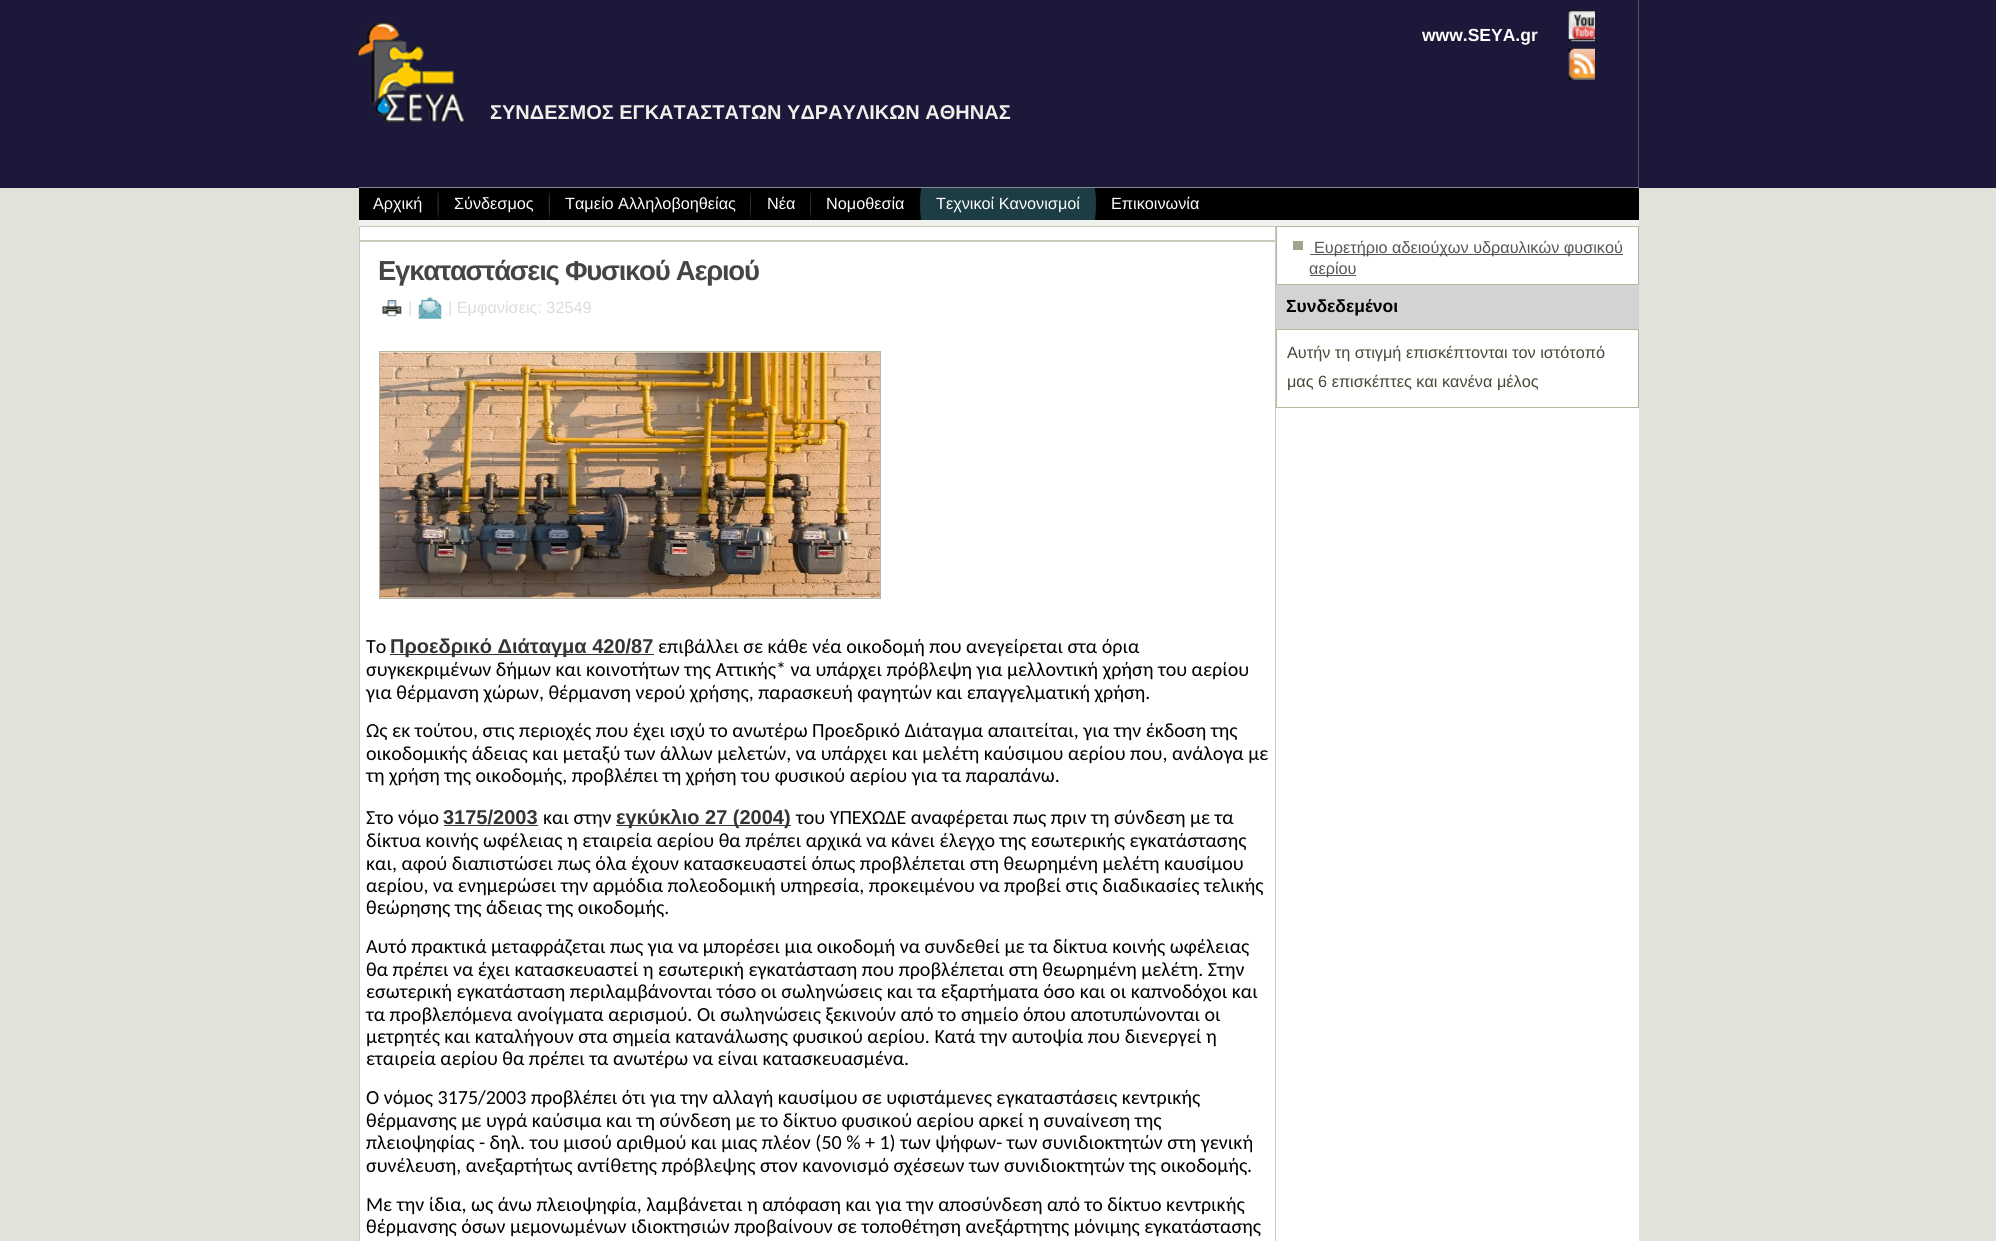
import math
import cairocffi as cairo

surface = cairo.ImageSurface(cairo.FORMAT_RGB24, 1996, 1241)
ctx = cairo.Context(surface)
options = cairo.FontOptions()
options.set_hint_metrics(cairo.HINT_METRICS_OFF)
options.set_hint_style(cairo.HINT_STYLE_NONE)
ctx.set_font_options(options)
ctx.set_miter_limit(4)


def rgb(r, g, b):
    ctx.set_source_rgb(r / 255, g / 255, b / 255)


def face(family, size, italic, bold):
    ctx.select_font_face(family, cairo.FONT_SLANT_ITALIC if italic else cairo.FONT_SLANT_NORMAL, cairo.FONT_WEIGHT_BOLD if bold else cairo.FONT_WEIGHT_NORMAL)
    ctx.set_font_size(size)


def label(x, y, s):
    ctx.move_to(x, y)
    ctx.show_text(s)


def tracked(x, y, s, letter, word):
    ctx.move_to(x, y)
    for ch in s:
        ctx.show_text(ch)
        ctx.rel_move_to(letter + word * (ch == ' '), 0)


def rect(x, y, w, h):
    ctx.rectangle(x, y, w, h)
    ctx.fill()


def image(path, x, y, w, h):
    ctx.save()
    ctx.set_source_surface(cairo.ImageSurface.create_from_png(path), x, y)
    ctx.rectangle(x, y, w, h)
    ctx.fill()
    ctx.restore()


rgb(225, 226, 218)
ctx.paint()
rgb(28, 24, 57)
rect(0, 0, 1996, 188)
rgb(241, 242, 238)
rect(359, 0, 1280, 226)
image('image0.png', 358, 0, 1281, 188)
face('Liberation Sans', 17.5, 0, 1)
rgb(255, 255, 255)
label(1422, 41, 'www.SEYA.gr')
image('image1.png', 1568, 10, 27, 32)
image('image2.png', 1568, 48, 27, 32)
face('Liberation Sans', 20, 0, 1)
rgb(239, 239, 235)
label(490, 119, 'ΣΥΝΔΕΣΜΟΣ ΕΓΚΑΤΑΣΤΑΤΩΝ ΥΔΡΑΥΛΙΚΩΝ ΑΘΗΝΑΣ')
rgb(0, 0, 0)
rect(359, 188, 1280, 32)
face('Liberation Sans', 16.25, 0, 0)
rgb(255, 255, 255)
label(373, 209, 'Αρχική')
image('image3.png', 437, 190, 2, 29)
label(454, 209, 'Σύνδεσμος')
image('image4.png', 548, 189, 2, 31)
label(565, 209, 'Ταμείο Αλληλοβοηθείας')
image('image5.png', 750, 189, 1, 31)
label(767, 209, 'Νέα')
image('image5.png', 810, 189, 1, 31)
label(826, 209, 'Νομοθεσία')
image('image5.png', 920, 189, 1, 31)
rgb(29, 61, 68)
rect(921, 188, 174, 32)
rgb(255, 255, 255)
label(936, 209, 'Τεχνικοί Κανονισμοί')
image('image5.png', 1095, 189, 1, 31)
label(1111, 209, 'Επικοινωνία')
ctx.rectangle(359.5, 226.5, 916, 14)
ctx.fill_preserve()
rgb(199, 202, 186)
ctx.set_line_width(1)
ctx.stroke()
rgb(255, 255, 255)
ctx.rectangle(359.5, 241.5, 916, 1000)
ctx.fill_preserve()
rgb(199, 202, 186)
ctx.stroke()
face('Liberation Sans', 27.5, 0, 1)
rgb(69, 69, 69)
tracked(378, 280, 'Εγκαταστάσεις Φυσικού Αεριού', -1.25, 0)
image('image6.png', 382, 300, 20, 17)
face('Liberation Sans', 16.25, 0, 0)
rgb(221, 219, 225)
label(408, 313, '|')
image('image7.png', 418, 297, 24, 22)
label(448, 313, '| Εμφανίσεις: 32549')
ctx.rectangle(379.5, 351.5, 501, 247)
rgb(180, 184, 163)
ctx.stroke()
image('image8.png', 380, 352, 500, 246)
face('Carlito', 20, 0, 0)
rgb(0, 0, 0)
label(366, 653, 'Το')
rgb(52, 52, 52)
rect(390, 654, 264, 1)
face('Liberation Sans', 20, 0, 1)
label(390, 653, 'Προεδρικό Διάταγμα 420/87')
face('Carlito', 20, 0, 0)
rgb(0, 0, 0)
label(658, 653, 'επιβάλλει σε κάθε νέα οικοδομή που ανεγείρεται στα όρια')
label(366, 676, 'συγκεκριμένων δήμων και κοινοτήτων της Αττικής* να υπάρχει πρόβλεψη για μελλοντική χρήση του αερίου')
label(366, 699, 'για θέρμανση χώρων, θέρμανση νερού χρήσης, παρασκευή φαγητών και επαγγελματική χρήση.')
label(366, 737, 'Ως εκ τούτου, στις περιοχές που έχει ισχύ το ανωτέρω Προεδρικό Διάταγμα απαιτείται, για την έκδοση της')
label(366, 760, 'οικοδομικής άδειας και μεταξύ των άλλων μελετών, να υπάρχει και μελέτη καύσιμου αερίου που, ανάλογα με')
label(366, 782, 'τη χρήση της οικοδομής, προβλέπει τη χρήση του φυσικού αερίου για τα παραπάνω.')
label(366, 824, 'Στο νόμο')
face('Liberation Sans', 20, 0, 1)
rgb(52, 52, 52)
label(443, 824, '3175/2003')
face('Carlito', 20, 0, 0)
rgb(0, 0, 0)
label(543, 824, 'και στην')
rgb(52, 52, 52)
rect(444, 825, 94, 1)
rect(616, 825, 175, 1)
face('Liberation Sans', 20, 0, 1)
label(616, 824, 'εγκύκλιο 27 (2004)')
face('Carlito', 20, 0, 0)
rgb(0, 0, 0)
label(796, 824, 'του ΥΠΕΧΩΔΕ αναφέρεται πως πριν τη σύνδεση με τα')
label(366, 847, 'δίκτυα κοινής ωφέλειας η εταιρεία αερίου θα πρέπει αρχικά να κάνει έλεγχο της εσωτερικής εγκατάστασης')
label(366, 870, 'και, αφού διαπιστώσει πως όλα έχουν κατασκευαστεί όπως προβλέπεται στη θεωρημένη μελέτη καυσίμου')
label(366, 892, 'αερίου, να ενημερώσει την αρμόδια πολεοδομική υπηρεσία, προκειμένου να προβεί στις διαδικασίες τελικής')
label(366, 914, 'θεώρησης της άδειας της οικοδομής.')
label(366, 953, 'Αυτό πρακτικά μεταφράζεται πως για να μπορέσει μια οικοδομή να συνδεθεί με τα δίκτυα κοινής ωφέλειας')
label(366, 976, 'θα πρέπει να έχει κατασκευαστεί η εσωτερική εγκατάσταση που προβλέπεται στη θεωρημένη μελέτη. Στην')
label(366, 998, 'εσωτερική εγκατάσταση περιλαμβάνονται τόσο οι σωληνώσεις και τα εξαρτήματα όσο και οι καπνοδόχοι και')
label(366, 1021, 'τα προβλεπόμενα ανοίγματα αερισμού. Οι σωληνώσεις ξεκινούν από το σημείο όπου αποτυπώνονται οι')
label(366, 1043, 'μετρητές και καταλήγουν στα σημεία κατανάλωσης φυσικού αερίου. Κατά την αυτοψία που διενεργεί η')
label(366, 1065, 'εταιρεία αερίου θα πρέπει τα ανωτέρω να είναι κατασκευασμένα.')
label(366, 1104, 'Ο νόμος 3175/2003 προβλέπει ότι για την αλλαγή καυσίμου σε υφιστάμενες εγκαταστάσεις κεντρικής')
label(366, 1127, 'θέρμανσης με υγρά καύσιμα και τη σύνδεση με το δίκτυο φυσικού αερίου αρκεί η συναίνεση της')
label(366, 1149, 'πλειοψηφίας - δηλ. του μισού αριθμού και μιας πλέον (50 % + 1) των ψήφων- των συνιδιοκτητών στη γενική')
label(366, 1172, 'συνέλευση, ανεξαρτήτως αντίθετης πρόβλεψης στον κανονισμό σχέσεων των συνιδιοκτητών της οικοδομής.')
label(366, 1211, 'Με την ίδια, ως άνω πλειοψηφία, λαμβάνεται η απόφαση και για την αποσύνδεση από το δίκτυο κεντρικής')
label(366, 1233, 'θέρμανσης όσων μεμονωμένων ιδιοκτησιών προβαίνουν σε τοποθέτηση ανεξάρτητης μόνιμης εγκατάστασης')
rgb(255, 255, 255)
rect(1276, 227, 363, 1014)
ctx.rectangle(1276.5, 226.5, 362, 58)
rgb(180, 184, 163)
ctx.stroke()
rgb(160, 165, 139)
rect(1293, 241, 10, 9)
rgb(86, 86, 86)
rect(1310, 254, 313, 1)
face('Liberation Sans', 16.25, 0, 0)
label(1314, 253, 'Ευρετήριο αδειούχων υδραυλικών φυσικού')
rect(1310, 275, 46, 1)
label(1309, 274, 'αερίου')
rgb(211, 211, 211)
rect(1276, 285, 363, 44)
face('Liberation Sans', 17.5, 0, 1)
rgb(0, 0, 0)
label(1286, 312, 'Συνδεδεμένοι')
ctx.rectangle(1276.5, 329.5, 362, 78)
rgb(180, 184, 163)
ctx.stroke()
face('Liberation Sans', 16.25, 0, 0)
rgb(69, 72, 55)
label(1287, 358, 'Αυτήν τη στιγμή επισκέπτονται τον ιστότοπό')
label(1287, 387, 'μας 6 επισκέπτες και κανένα μέλος')
surface.write_to_png('render.png')
